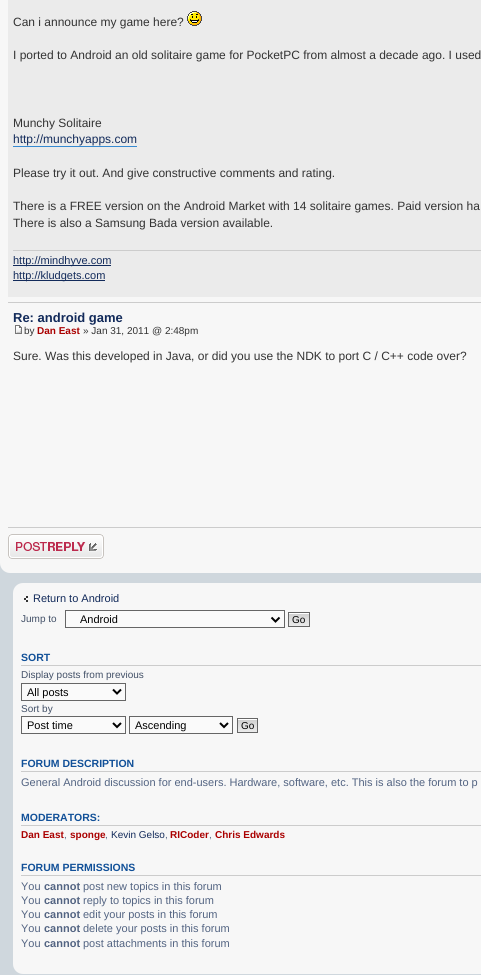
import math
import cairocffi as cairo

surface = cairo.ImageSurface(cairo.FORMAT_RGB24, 481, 975)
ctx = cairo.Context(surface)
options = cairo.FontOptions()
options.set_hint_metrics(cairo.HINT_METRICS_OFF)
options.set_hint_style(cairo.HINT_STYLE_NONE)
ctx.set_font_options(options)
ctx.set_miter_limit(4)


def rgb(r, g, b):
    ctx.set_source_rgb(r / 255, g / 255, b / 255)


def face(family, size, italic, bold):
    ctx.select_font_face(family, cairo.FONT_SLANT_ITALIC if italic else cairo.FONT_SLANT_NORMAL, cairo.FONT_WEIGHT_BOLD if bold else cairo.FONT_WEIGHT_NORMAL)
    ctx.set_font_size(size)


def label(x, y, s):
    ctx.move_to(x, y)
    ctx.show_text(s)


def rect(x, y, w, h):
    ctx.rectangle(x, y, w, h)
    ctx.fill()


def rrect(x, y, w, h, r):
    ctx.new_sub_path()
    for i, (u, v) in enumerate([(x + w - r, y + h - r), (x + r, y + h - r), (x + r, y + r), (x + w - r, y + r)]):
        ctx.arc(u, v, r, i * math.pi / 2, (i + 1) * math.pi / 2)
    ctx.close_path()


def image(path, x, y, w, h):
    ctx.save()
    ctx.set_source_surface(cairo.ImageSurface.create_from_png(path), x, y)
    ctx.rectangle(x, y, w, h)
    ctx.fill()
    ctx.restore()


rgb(207, 215, 221)
ctx.paint()
rgb(247, 247, 247)
rrect(0, -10, 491, 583, 10)
ctx.fill()
rgb(235, 235, 235)
rect(8, 0, 473, 297)
face('Liberation Sans', 12, 0, 0)
rgb(51, 51, 51)
label(13, 26, 'Can i announce my game here?')
image('image0.png', 187, 11, 15, 15)
label(13, 59, 'I ported to Android an old solitaire game for PocketPC from almost a decade ago. I used')
label(13, 127, 'Munchy Solitaire')
rgb(18, 42, 90)
label(13, 143, 'http://munchyapps.com')
rgb(54, 138, 210)
rect(13, 146, 124, 1)
rgb(51, 51, 51)
label(13, 177, 'Please try it out. And give constructive comments and rating.')
label(13, 210, 'There is a FREE version on the Android Market with 14 solitaire games. Paid version ha')
label(13, 227, 'There is also a Samsung Bada version available.')
rgb(204, 204, 204)
rect(13, 250, 468, 1)
rgb(18, 42, 90)
rect(13, 265, 98, 1)
face('Liberation Sans', 11, 0, 0)
label(13, 264, 'http://mindhyve.com')
rect(13, 280, 92, 1)
label(13, 279, 'http://kludgets.com')
rgb(204, 204, 204)
rect(8, 302, 473, 1)
face('Liberation Sans', 13, 0, 1)
rgb(18, 42, 90)
label(13, 322, 'Re: android game')
image('image1.png', 15, 325, 7, 9)
face('Liberation Sans', 10, 0, 0)
rgb(51, 51, 51)
label(24, 334, 'by')
face('Liberation Sans', 10, 0, 1)
rgb(170, 0, 0)
label(37, 334, 'Dan East')
face('Liberation Sans', 10, 0, 0)
rgb(51, 51, 51)
label(83, 334, '» Jan 31, 2011 @ 2:48pm')
face('Liberation Sans', 12, 0, 0)
label(13, 360, 'Sure. Was this developed in Java, or did you use the NDK to port C / C++ code over?')
rgb(204, 204, 204)
rect(8, 527, 473, 1)
image('image2.png', 8, 534, 96, 25)
rgb(247, 247, 247)
rrect(13, 583, 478, 391, 10)
ctx.fill()
image('image3.png', 24, 596, 4, 6)
face('Liberation Sans', 11, 0, 0)
rgb(18, 42, 90)
label(33, 602, 'Return to Android')
face('Liberation Sans', 10, 0, 0)
rgb(66, 80, 103)
label(21, 622, 'Jump to')
rgb(250, 250, 250)
ctx.rectangle(65.5, 610.5, 219, 17)
ctx.fill_preserve()
rgb(102, 102, 102)
ctx.set_line_width(1)
ctx.stroke()
ctx.new_path()
ctx.move_to(271.5, 617.5)
ctx.line_to(275.5, 621.5)
ctx.line_to(279.5, 617.5)
rgb(0, 0, 0)
ctx.set_line_width(2)
ctx.stroke()
face('Liberation Sans', 11, 0, 0)
label(80, 623, 'Android')
image('image4.png', 289, 613, 20, 13)
ctx.rectangle(288.5, 612.5, 21, 14)
rgb(102, 102, 102)
ctx.set_line_width(1)
ctx.stroke()
face('Liberation Sans', 10, 0, 0)
rgb(0, 0, 0)
label(292, 623, 'Go')
rgb(204, 204, 204)
rect(21, 665, 460, 1)
face('Liberation Sans', 10.5, 0, 1)
rgb(17, 80, 152)
label(21, 661, 'SORT')
face('Liberation Sans', 10, 0, 0)
rgb(66, 80, 103)
label(21, 678, 'Display posts from previous')
rgb(250, 250, 250)
ctx.rectangle(21.5, 683.5, 104, 17)
ctx.fill_preserve()
rgb(102, 102, 102)
ctx.stroke()
ctx.new_path()
ctx.move_to(113, 689.5)
ctx.line_to(117, 693.5)
ctx.line_to(121, 689.5)
rgb(0, 0, 0)
ctx.set_line_width(2)
ctx.stroke()
face('Liberation Sans', 11, 0, 0)
label(27, 696, 'All posts')
face('Liberation Sans', 10, 0, 0)
rgb(66, 80, 103)
label(21, 712, 'Sort by')
rgb(250, 250, 250)
ctx.rectangle(21.5, 716.5, 104, 17)
ctx.fill_preserve()
rgb(102, 102, 102)
ctx.set_line_width(1)
ctx.stroke()
ctx.new_path()
ctx.move_to(113, 723)
ctx.line_to(117, 727)
ctx.line_to(121, 723)
rgb(0, 0, 0)
ctx.set_line_width(2)
ctx.stroke()
face('Liberation Sans', 11, 0, 0)
label(27, 729, 'Post time')
rgb(250, 250, 250)
ctx.rectangle(129.5, 716.5, 103, 17)
ctx.fill_preserve()
rgb(102, 102, 102)
ctx.set_line_width(1)
ctx.stroke()
ctx.new_path()
ctx.move_to(220, 723)
ctx.line_to(224, 727)
ctx.line_to(228, 723)
rgb(0, 0, 0)
ctx.set_line_width(2)
ctx.stroke()
label(135, 729, 'Ascending')
image('image5.png', 238, 719, 19, 13)
ctx.rectangle(237.5, 718.5, 20, 14)
rgb(102, 102, 102)
ctx.set_line_width(1)
ctx.stroke()
face('Liberation Sans', 10, 0, 0)
rgb(0, 0, 0)
label(241, 729, 'Go')
rgb(204, 204, 204)
rect(21, 771, 460, 1)
face('Liberation Sans', 10.5, 0, 1)
rgb(17, 80, 152)
label(21, 767, 'FORUM DESCRIPTION')
face('Liberation Sans', 11, 0, 0)
rgb(83, 100, 130)
label(21, 786, 'General Android discussion for end-users. Hardware, software, etc. This is also the forum to p')
rgb(204, 204, 204)
rect(21, 825, 460, 1)
face('Liberation Sans', 10.5, 0, 1)
rgb(17, 80, 152)
label(21, 821, 'MODERATORS:')
face('Liberation Sans', 10, 0, 1)
rgb(170, 0, 0)
label(21, 838, 'Dan East')
face('Liberation Sans', 10, 0, 0)
rgb(83, 100, 130)
label(64, 838, ',')
face('Liberation Sans', 10, 0, 1)
rgb(170, 0, 0)
label(70, 838, 'sponge')
face('Liberation Sans', 10, 0, 0)
rgb(83, 100, 130)
label(105, 838, ',')
rgb(18, 42, 90)
label(111, 838, 'Kevin Gelso')
rgb(83, 100, 130)
label(165, 838, ',')
face('Liberation Sans', 10, 0, 1)
rgb(170, 0, 0)
label(170, 838, 'RICoder')
face('Liberation Sans', 10, 0, 0)
rgb(83, 100, 130)
label(209, 838, ',')
face('Liberation Sans', 10, 0, 1)
rgb(170, 0, 0)
label(215, 838, 'Chris Edwards')
rgb(204, 204, 204)
rect(21, 875, 460, 1)
face('Liberation Sans', 10.5, 0, 1)
rgb(17, 80, 152)
label(21, 871, 'FORUM PERMISSIONS')
face('Liberation Sans', 11, 0, 0)
rgb(83, 100, 130)
label(21, 890, 'You')
face('Liberation Sans', 11, 0, 1)
label(44, 890, 'cannot')
face('Liberation Sans', 11, 0, 0)
label(83, 890, 'post new topics in this forum')
label(21, 904, 'You')
face('Liberation Sans', 11, 0, 1)
label(44, 904, 'cannot')
face('Liberation Sans', 11, 0, 0)
label(83, 904, 'reply to topics in this forum')
label(21, 918, 'You')
face('Liberation Sans', 11, 0, 1)
label(44, 918, 'cannot')
face('Liberation Sans', 11, 0, 0)
label(83, 918, 'edit your posts in this forum')
label(21, 932, 'You')
face('Liberation Sans', 11, 0, 1)
label(44, 932, 'cannot')
face('Liberation Sans', 11, 0, 0)
label(83, 932, 'delete your posts in this forum')
label(21, 947, 'You')
face('Liberation Sans', 11, 0, 1)
label(44, 947, 'cannot')
face('Liberation Sans', 11, 0, 0)
label(83, 947, 'post attachments in this forum')
surface.write_to_png('render.png')
